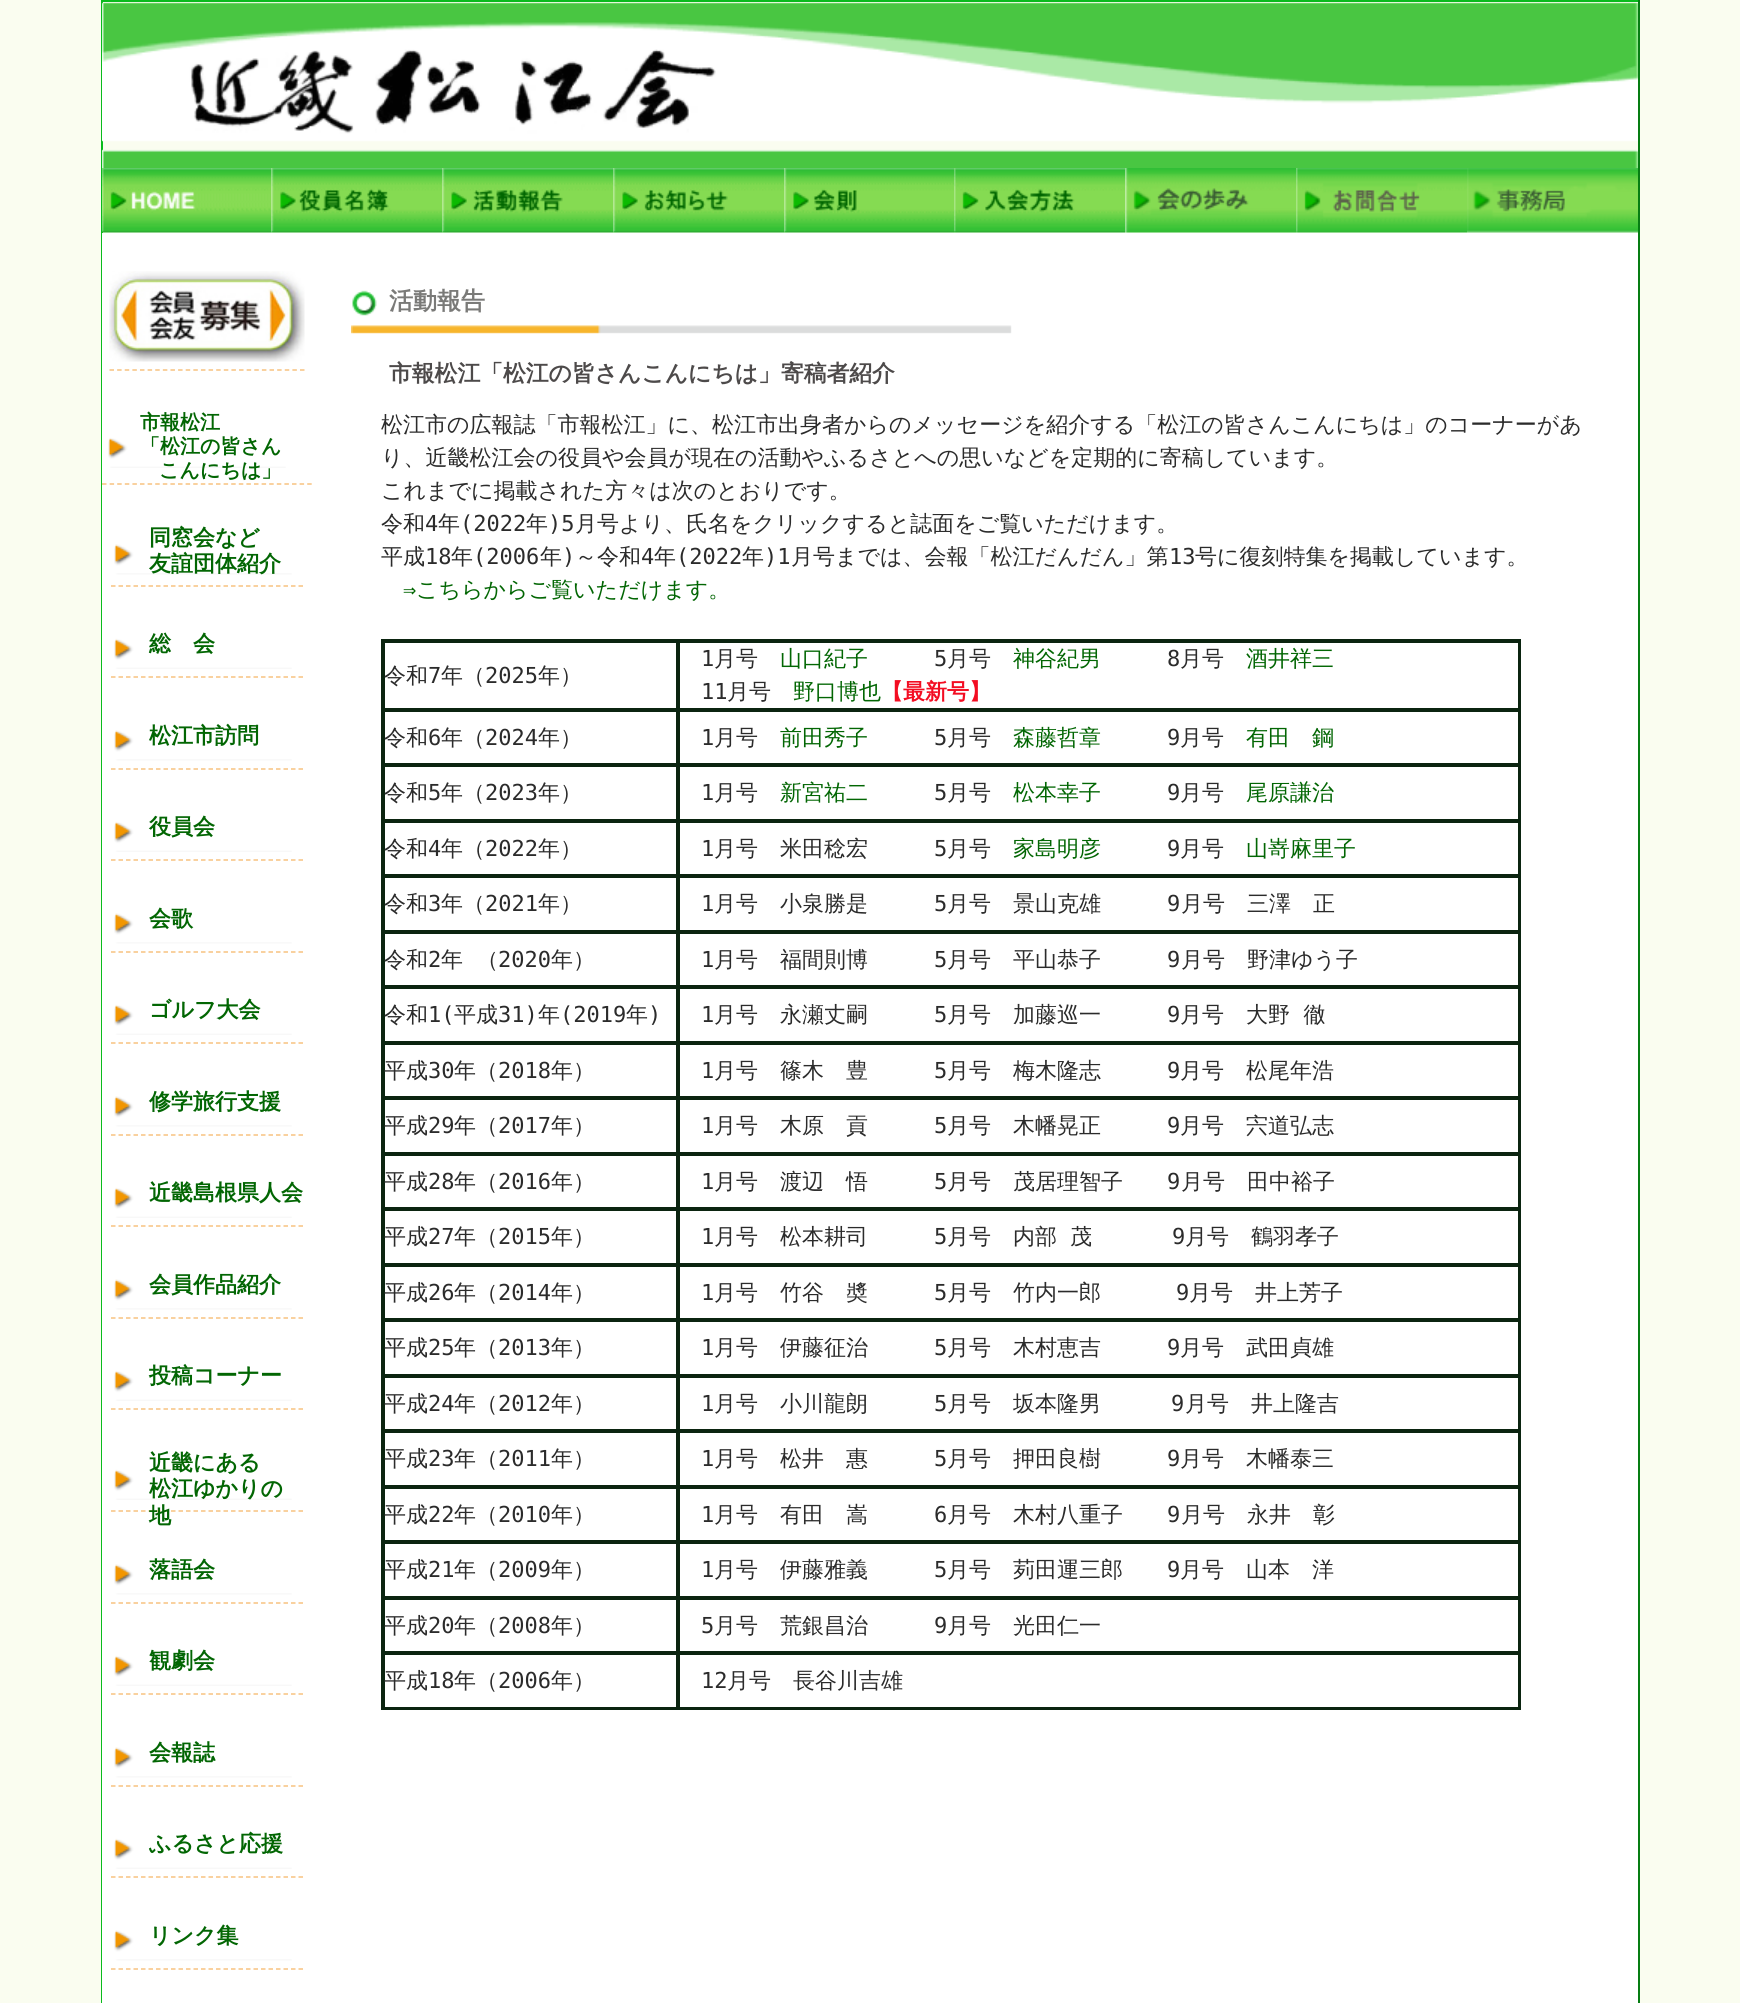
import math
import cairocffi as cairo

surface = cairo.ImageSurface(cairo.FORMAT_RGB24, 1740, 2003)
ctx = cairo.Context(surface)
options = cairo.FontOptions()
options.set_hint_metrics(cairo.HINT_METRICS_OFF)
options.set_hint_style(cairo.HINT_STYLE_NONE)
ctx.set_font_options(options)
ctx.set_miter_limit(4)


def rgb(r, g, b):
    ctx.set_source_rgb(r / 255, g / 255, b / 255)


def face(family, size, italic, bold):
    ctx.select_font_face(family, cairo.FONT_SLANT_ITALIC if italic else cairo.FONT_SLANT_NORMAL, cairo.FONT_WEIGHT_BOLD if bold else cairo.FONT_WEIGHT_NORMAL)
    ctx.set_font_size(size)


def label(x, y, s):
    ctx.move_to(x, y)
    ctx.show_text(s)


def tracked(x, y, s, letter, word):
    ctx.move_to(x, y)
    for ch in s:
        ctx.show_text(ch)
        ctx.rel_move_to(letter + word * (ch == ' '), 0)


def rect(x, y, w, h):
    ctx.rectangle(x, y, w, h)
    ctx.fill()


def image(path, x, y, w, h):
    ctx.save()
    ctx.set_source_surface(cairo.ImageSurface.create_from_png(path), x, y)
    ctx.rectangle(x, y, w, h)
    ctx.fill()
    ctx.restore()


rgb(250, 253, 240)
ctx.paint()
rgb(9, 187, 29)
rect(101, 0, 1539, 2)
rgb(6, 125, 19)
rect(1638, 0, 2, 2003)
rgb(9, 187, 29)
rect(101, 0, 2, 2003)
image('image0.png', 102, 2, 1536, 166)
image('image1.png', 102, 168, 170, 65)
image('image2.png', 271, 168, 172, 65)
image('image3.png', 442, 168, 172, 65)
image('image4.png', 613, 168, 172, 65)
image('image5.png', 784, 168, 170, 65)
image('image6.png', 954, 168, 171, 65)
image('image7.png', 1125, 168, 171, 65)
image('image8.png', 1296, 168, 171, 65)
image('image9.png', 1467, 168, 171, 65)
rgb(255, 255, 255)
rect(102, 233, 1536, 1770)
ctx.new_path()
ctx.move_to(109.5, 370)
ctx.line_to(304.5, 370)
rgb(247, 194, 128)
ctx.set_line_width(1.5)
ctx.set_dash([4.5, 3.12])
ctx.stroke()
image('image10.png', 109, 271, 196, 91)
image('image11.png', 108, 437, 178, 31)
ctx.new_path()
ctx.move_to(102, 484)
ctx.line_to(312, 484)
ctx.set_dash([4.5, 3.1])
ctx.stroke()
face('WenQuanYi Zen Hei', 20, 0, 1)
rgb(2, 102, 3)
label(140, 429, '市報松江')
label(140, 453, '「松江の皆さん')
label(159, 477, 'こんにちは」')
image('image12.png', 114, 544, 178, 31)
ctx.new_path()
ctx.move_to(111, 586)
ctx.line_to(303, 586)
rgb(247, 194, 128)
ctx.set_dash([4.5, 3])
ctx.stroke()
face('WenQuanYi Zen Hei', 22, 0, 1)
rgb(2, 102, 3)
label(149, 545, '同窓会など')
label(149, 571, '友誼団体紹介')
image('image11.png', 114, 638, 178, 31)
ctx.new_path()
ctx.move_to(111, 677)
ctx.line_to(303, 677)
rgb(247, 194, 128)
ctx.stroke()
rgb(2, 102, 3)
label(149, 651, '総　会')
image('image12.png', 114, 730, 178, 31)
ctx.new_path()
ctx.move_to(111, 769)
ctx.line_to(303, 769)
rgb(247, 194, 128)
ctx.stroke()
rgb(2, 102, 3)
label(149, 743, '松江市訪問')
image('image11.png', 114, 821, 178, 31)
ctx.new_path()
ctx.move_to(111, 860)
ctx.line_to(303, 860)
rgb(247, 194, 128)
ctx.stroke()
rgb(2, 102, 3)
label(149, 834, '役員会')
image('image12.png', 114, 913, 178, 31)
ctx.new_path()
ctx.move_to(111, 952)
ctx.line_to(303, 952)
rgb(247, 194, 128)
ctx.stroke()
rgb(2, 102, 3)
label(149, 926, '会歌')
image('image11.png', 114, 1004, 178, 31)
ctx.new_path()
ctx.move_to(111, 1043)
ctx.line_to(303, 1043)
rgb(247, 194, 128)
ctx.stroke()
rgb(2, 102, 3)
label(149, 1017, 'ゴルフ大会')
image('image12.png', 114, 1096, 178, 31)
ctx.new_path()
ctx.move_to(111, 1135)
ctx.line_to(303, 1135)
rgb(247, 194, 128)
ctx.stroke()
rgb(2, 102, 3)
label(149, 1109, '修学旅行支援')
image('image11.png', 114, 1187, 178, 31)
ctx.new_path()
ctx.move_to(111, 1226)
ctx.line_to(303, 1226)
rgb(247, 194, 128)
ctx.stroke()
rgb(2, 102, 3)
label(149, 1200, '近畿島根県人会')
image('image12.png', 114, 1279, 178, 31)
ctx.new_path()
ctx.move_to(111, 1318)
ctx.line_to(303, 1318)
rgb(247, 194, 128)
ctx.stroke()
rgb(2, 102, 3)
label(149, 1292, '会員作品紹介')
image('image11.png', 114, 1370, 178, 31)
ctx.new_path()
ctx.move_to(111, 1409)
ctx.line_to(303, 1409)
rgb(247, 194, 128)
ctx.stroke()
rgb(2, 102, 3)
label(149, 1383, '投稿コーナー')
image('image11.png', 114, 1469, 178, 31)
ctx.new_path()
ctx.move_to(111, 1511)
ctx.line_to(303, 1511)
rgb(247, 194, 128)
ctx.stroke()
rgb(2, 102, 3)
label(149, 1470, '近畿にある')
label(149, 1496, '松江ゆかりの')
label(149, 1523, '地')
image('image12.png', 114, 1564, 178, 31)
ctx.new_path()
ctx.move_to(111, 1603)
ctx.line_to(303, 1603)
rgb(247, 194, 128)
ctx.stroke()
rgb(2, 102, 3)
label(149, 1577, '落語会')
image('image11.png', 114, 1655, 178, 31)
ctx.new_path()
ctx.move_to(111, 1694)
ctx.line_to(303, 1694)
rgb(247, 194, 128)
ctx.stroke()
rgb(2, 102, 3)
label(149, 1668, '観劇会')
image('image12.png', 114, 1747, 178, 31)
ctx.new_path()
ctx.move_to(111, 1786)
ctx.line_to(303, 1786)
rgb(247, 194, 128)
ctx.stroke()
rgb(2, 102, 3)
label(149, 1760, '会報誌')
image('image11.png', 114, 1838, 178, 31)
ctx.new_path()
ctx.move_to(111, 1877)
ctx.line_to(303, 1877)
rgb(247, 194, 128)
ctx.stroke()
rgb(2, 102, 3)
label(149, 1851, 'ふるさと応援')
image('image12.png', 114, 1930, 178, 31)
ctx.new_path()
ctx.move_to(111, 1969)
ctx.line_to(303, 1969)
rgb(247, 194, 128)
ctx.stroke()
rgb(2, 102, 3)
label(149, 1943, 'リンク集')
image('image13.png', 351, 290, 661, 44)
face('WenQuanYi Zen Hei', 24, 0, 1)
rgb(122, 122, 120)
label(389, 309, '活動報告')
face('WenQuanYi Zen Hei', 22.8, 0, 1)
rgb(77, 74, 74)
label(389, 381, '市報松江「松江の皆さんこんにちは」寄稿者紹介')
face('WenQuanYi Zen Hei Medium', 22, 0, 0)
rgb(43, 43, 43)
label(381, 432, '松江市の広報誌「市報松江」に、松江市出身者からのメッセージを紹介する「松江の皆さんこんにちは」のコーナーがあ')
label(381, 465, 'り、近畿松江会の役員や会員が現在の活動やふるさとへの思いなどを定期的に寄稿しています。')
label(381, 498, 'これまでに掲載された方々は次のとおりです。')
label(381, 531, '令和')
face('DejaVu Sans Mono', 22, 0, 0)
label(425, 531, '4')
face('WenQuanYi Zen Hei Medium', 22, 0, 0)
label(438, 531, '年')
face('DejaVu Sans Mono', 22, 0, 0)
label(460, 531, '(2022')
face('WenQuanYi Zen Hei Medium', 22, 0, 0)
label(526, 531, '年')
face('DejaVu Sans Mono', 22, 0, 0)
label(548, 531, ')5')
face('WenQuanYi Zen Hei Medium', 22, 0, 0)
label(575, 531, '月号より、氏名をクリックすると誌面をご覧いただけます。')
label(381, 564, '平成')
face('DejaVu Sans Mono', 22, 0, 0)
label(425, 564, '18')
face('WenQuanYi Zen Hei Medium', 22, 0, 0)
label(451, 564, '年')
face('DejaVu Sans Mono', 22, 0, 0)
label(473, 564, '(2006')
face('WenQuanYi Zen Hei Medium', 22, 0, 0)
label(540, 564, '年')
face('DejaVu Sans Mono', 22, 0, 0)
label(562, 564, ')')
face('WenQuanYi Zen Hei Medium', 22, 0, 0)
label(575, 564, '～令和')
face('DejaVu Sans Mono', 22, 0, 0)
label(641, 564, '4')
face('WenQuanYi Zen Hei Medium', 22, 0, 0)
label(654, 564, '年')
face('DejaVu Sans Mono', 22, 0, 0)
label(676, 564, '(2022')
face('WenQuanYi Zen Hei Medium', 22, 0, 0)
label(742, 564, '年')
face('DejaVu Sans Mono', 22, 0, 0)
label(764, 564, ')1')
face('WenQuanYi Zen Hei Medium', 22, 0, 0)
label(791, 564, '月号までは、会報「松江だんだん」第')
face('DejaVu Sans Mono', 22, 0, 0)
label(1169, 564, '13')
face('WenQuanYi Zen Hei Medium', 22, 0, 0)
label(1195, 564, '号に復刻特集を掲載しています。')
face('DejaVu Sans Mono', 22, 0, 0)
rgb(2, 102, 3)
label(403, 597, '⇒')
face('WenQuanYi Zen Hei Medium', 22, 0, 0)
label(416, 597, 'こちらからご覧いただけます。')
ctx.rectangle(382, 640, 1138, 1069)
rgb(11, 36, 16)
ctx.set_line_width(2)
ctx.set_dash([])
ctx.stroke()
ctx.rectangle(384, 642, 293, 67)
ctx.stroke()
rgb(43, 43, 43)
label(384, 683, '令和')
face('DejaVu Sans Mono', 22, 0, 0)
label(428, 683, '7')
face('WenQuanYi Zen Hei Medium', 22, 0, 0)
label(441, 683, '年（')
face('DejaVu Sans Mono', 22, 0, 0)
label(485, 683, '2025')
face('WenQuanYi Zen Hei Medium', 22, 0, 0)
label(538, 683, '年）')
ctx.rectangle(679, 642, 840, 67)
rgb(11, 36, 16)
ctx.stroke()
face('DejaVu Sans Mono', 22, 0, 0)
rgb(43, 43, 43)
label(701, 666, '1')
face('WenQuanYi Zen Hei Medium', 22, 0, 0)
label(714, 666, '月号')
rgb(2, 102, 3)
label(780, 666, '山口紀子')
face('DejaVu Sans Mono', 22, 0, 0)
rgb(43, 43, 43)
label(934, 666, '5')
face('WenQuanYi Zen Hei Medium', 22, 0, 0)
label(947, 666, '月号')
rgb(2, 102, 3)
label(1013, 666, '神谷紀男')
face('DejaVu Sans Mono', 22, 0, 0)
rgb(43, 43, 43)
label(1167, 666, '8')
face('WenQuanYi Zen Hei Medium', 22, 0, 0)
label(1180, 666, '月号')
rgb(2, 102, 3)
label(1246, 666, '酒井祥三')
face('DejaVu Sans Mono', 22, 0, 0)
rgb(43, 43, 43)
label(701, 699, '11')
face('WenQuanYi Zen Hei Medium', 22, 0, 0)
label(727, 699, '月号')
rgb(2, 102, 3)
label(793, 699, '野口博也')
face('WenQuanYi Zen Hei', 22, 0, 1)
rgb(243, 13, 34)
label(881, 699, '【最新号】')
ctx.rectangle(384, 711, 293, 53)
rgb(11, 36, 16)
ctx.stroke()
face('WenQuanYi Zen Hei Medium', 22, 0, 0)
rgb(43, 43, 43)
label(384, 745, '令和')
face('DejaVu Sans Mono', 22, 0, 0)
label(428, 745, '6')
face('WenQuanYi Zen Hei Medium', 22, 0, 0)
label(441, 745, '年（')
face('DejaVu Sans Mono', 22, 0, 0)
label(485, 745, '2024')
face('WenQuanYi Zen Hei Medium', 22, 0, 0)
label(538, 745, '年）')
ctx.rectangle(679, 711, 840, 53)
rgb(11, 36, 16)
ctx.stroke()
face('DejaVu Sans Mono', 22, 0, 0)
rgb(43, 43, 43)
label(701, 745, '1')
face('WenQuanYi Zen Hei Medium', 22, 0, 0)
label(714, 745, '月号')
rgb(2, 102, 3)
label(780, 745, '前田秀子')
face('DejaVu Sans Mono', 22, 0, 0)
rgb(43, 43, 43)
label(934, 745, '5')
face('WenQuanYi Zen Hei Medium', 22, 0, 0)
label(947, 745, '月号')
rgb(2, 102, 3)
label(1013, 745, '森藤哲章')
face('DejaVu Sans Mono', 22, 0, 0)
rgb(43, 43, 43)
label(1167, 745, '9')
face('WenQuanYi Zen Hei Medium', 22, 0, 0)
label(1180, 745, '月号')
rgb(2, 102, 3)
label(1246, 745, '有田　鋼')
ctx.rectangle(384, 766, 293, 54)
rgb(11, 36, 16)
ctx.stroke()
rgb(43, 43, 43)
label(384, 800, '令和')
face('DejaVu Sans Mono', 22, 0, 0)
label(428, 800, '5')
face('WenQuanYi Zen Hei Medium', 22, 0, 0)
label(441, 800, '年（')
face('DejaVu Sans Mono', 22, 0, 0)
label(485, 800, '2023')
face('WenQuanYi Zen Hei Medium', 22, 0, 0)
label(538, 800, '年）')
ctx.rectangle(679, 766, 840, 54)
rgb(11, 36, 16)
ctx.stroke()
face('DejaVu Sans Mono', 22, 0, 0)
rgb(43, 43, 43)
label(701, 800, '1')
face('WenQuanYi Zen Hei Medium', 22, 0, 0)
label(714, 800, '月号')
rgb(2, 102, 3)
label(780, 800, '新宮祐二')
face('DejaVu Sans Mono', 22, 0, 0)
rgb(43, 43, 43)
label(934, 800, '5')
face('WenQuanYi Zen Hei Medium', 22, 0, 0)
label(947, 800, '月号')
rgb(2, 102, 3)
label(1013, 800, '松本幸子')
face('DejaVu Sans Mono', 22, 0, 0)
rgb(43, 43, 43)
label(1167, 800, '9')
face('WenQuanYi Zen Hei Medium', 22, 0, 0)
label(1180, 800, '月号')
rgb(2, 102, 3)
label(1246, 800, '尾原謙治')
ctx.rectangle(384, 822, 293, 53)
rgb(11, 36, 16)
ctx.stroke()
rgb(43, 43, 43)
label(384, 856, '令和')
face('DejaVu Sans Mono', 22, 0, 0)
label(428, 856, '4')
face('WenQuanYi Zen Hei Medium', 22, 0, 0)
label(441, 856, '年（')
face('DejaVu Sans Mono', 22, 0, 0)
label(485, 856, '2022')
face('WenQuanYi Zen Hei Medium', 22, 0, 0)
label(538, 856, '年）')
ctx.rectangle(679, 822, 840, 53)
rgb(11, 36, 16)
ctx.stroke()
face('DejaVu Sans Mono', 22, 0, 0)
rgb(43, 43, 43)
label(701, 856, '1')
face('WenQuanYi Zen Hei Medium', 22, 0, 0)
label(714, 856, '月号　米田稔宏')
face('DejaVu Sans Mono', 22, 0, 0)
label(934, 856, '5')
face('WenQuanYi Zen Hei Medium', 22, 0, 0)
label(947, 856, '月号')
rgb(2, 102, 3)
label(1013, 856, '家島明彦')
face('DejaVu Sans Mono', 22, 0, 0)
rgb(43, 43, 43)
label(1167, 856, '9')
face('WenQuanYi Zen Hei Medium', 22, 0, 0)
label(1180, 856, '月号')
rgb(2, 102, 3)
label(1246, 856, '山嵜麻里子')
ctx.rectangle(384, 877, 293, 54)
rgb(11, 36, 16)
ctx.stroke()
rgb(43, 43, 43)
label(384, 911, '令和')
face('DejaVu Sans Mono', 22, 0, 0)
label(428, 911, '3')
face('WenQuanYi Zen Hei Medium', 22, 0, 0)
label(441, 911, '年（')
face('DejaVu Sans Mono', 22, 0, 0)
label(485, 911, '2021')
face('WenQuanYi Zen Hei Medium', 22, 0, 0)
label(538, 911, '年）')
ctx.rectangle(679, 877, 840, 54)
rgb(11, 36, 16)
ctx.stroke()
face('DejaVu Sans Mono', 22, 0, 0)
rgb(43, 43, 43)
label(701, 911, '1')
face('WenQuanYi Zen Hei Medium', 22, 0, 0)
label(714, 911, '月号　小泉勝是')
face('DejaVu Sans Mono', 22, 0, 0)
label(934, 911, '5')
face('WenQuanYi Zen Hei Medium', 22, 0, 0)
label(947, 911, '月号　景山克雄')
face('DejaVu Sans Mono', 22, 0, 0)
label(1167, 911, '9')
face('WenQuanYi Zen Hei Medium', 22, 0, 0)
label(1181, 911, '月号　三澤　正')
ctx.rectangle(384, 933, 293, 53)
rgb(11, 36, 16)
ctx.stroke()
rgb(43, 43, 43)
label(384, 967, '令和')
face('DejaVu Sans Mono', 22, 0, 0)
label(428, 967, '2')
face('WenQuanYi Zen Hei Medium', 22, 0, 0)
tracked(441, 967, '年 （', 0, 7)
face('DejaVu Sans Mono', 22, 0, 0)
label(498, 967, '2020')
face('WenQuanYi Zen Hei Medium', 22, 0, 0)
label(551, 967, '年）')
ctx.rectangle(679, 933, 840, 53)
rgb(11, 36, 16)
ctx.stroke()
face('DejaVu Sans Mono', 22, 0, 0)
rgb(43, 43, 43)
label(701, 967, '1')
face('WenQuanYi Zen Hei Medium', 22, 0, 0)
label(714, 967, '月号　福間則博')
face('DejaVu Sans Mono', 22, 0, 0)
label(934, 967, '5')
face('WenQuanYi Zen Hei Medium', 22, 0, 0)
label(947, 967, '月号　平山恭子')
face('DejaVu Sans Mono', 22, 0, 0)
label(1167, 967, '9')
face('WenQuanYi Zen Hei Medium', 22, 0, 0)
label(1181, 967, '月号　野津ゆう子')
ctx.rectangle(384, 988, 293, 54)
rgb(11, 36, 16)
ctx.stroke()
rgb(43, 43, 43)
label(384, 1022, '令和')
face('DejaVu Sans Mono', 22, 0, 0)
label(428, 1022, '1(')
face('WenQuanYi Zen Hei Medium', 22, 0, 0)
label(454, 1022, '平成')
face('DejaVu Sans Mono', 22, 0, 0)
label(498, 1022, '31)')
face('WenQuanYi Zen Hei Medium', 22, 0, 0)
label(538, 1022, '年')
face('DejaVu Sans Mono', 22, 0, 0)
label(560, 1022, '(2019')
face('WenQuanYi Zen Hei Medium', 22, 0, 0)
label(626, 1022, '年')
face('DejaVu Sans Mono', 22, 0, 0)
label(648, 1022, ')')
ctx.rectangle(679, 988, 840, 54)
rgb(11, 36, 16)
ctx.stroke()
rgb(43, 43, 43)
label(701, 1022, '1')
face('WenQuanYi Zen Hei Medium', 22, 0, 0)
label(714, 1022, '月号　永瀬丈嗣')
face('DejaVu Sans Mono', 22, 0, 0)
label(934, 1022, '5')
face('WenQuanYi Zen Hei Medium', 22, 0, 0)
label(947, 1022, '月号　加藤巡一')
face('DejaVu Sans Mono', 22, 0, 0)
label(1167, 1022, '9')
face('WenQuanYi Zen Hei Medium', 22, 0, 0)
tracked(1180, 1022, '月号　大野 徹', 0, 7)
ctx.rectangle(384, 1044, 293, 53)
rgb(11, 36, 16)
ctx.stroke()
rgb(43, 43, 43)
label(384, 1078, '平成')
face('DejaVu Sans Mono', 22, 0, 0)
label(428, 1078, '30')
face('WenQuanYi Zen Hei Medium', 22, 0, 0)
label(454, 1078, '年（')
face('DejaVu Sans Mono', 22, 0, 0)
label(498, 1078, '2018')
face('WenQuanYi Zen Hei Medium', 22, 0, 0)
label(551, 1078, '年）')
ctx.rectangle(679, 1044, 840, 53)
rgb(11, 36, 16)
ctx.stroke()
face('DejaVu Sans Mono', 22, 0, 0)
rgb(43, 43, 43)
label(701, 1078, '1')
face('WenQuanYi Zen Hei Medium', 22, 0, 0)
label(714, 1078, '月号　篠木　豊')
face('DejaVu Sans Mono', 22, 0, 0)
label(934, 1078, '5')
face('WenQuanYi Zen Hei Medium', 22, 0, 0)
label(947, 1078, '月号　梅木隆志')
face('DejaVu Sans Mono', 22, 0, 0)
label(1167, 1078, '9')
face('WenQuanYi Zen Hei Medium', 22, 0, 0)
label(1180, 1078, '月号　松尾年浩')
ctx.rectangle(384, 1099, 293, 54)
rgb(11, 36, 16)
ctx.stroke()
rgb(43, 43, 43)
label(384, 1133, '平成')
face('DejaVu Sans Mono', 22, 0, 0)
label(428, 1133, '29')
face('WenQuanYi Zen Hei Medium', 22, 0, 0)
label(454, 1133, '年（')
face('DejaVu Sans Mono', 22, 0, 0)
label(498, 1133, '2017')
face('WenQuanYi Zen Hei Medium', 22, 0, 0)
label(551, 1133, '年）')
ctx.rectangle(679, 1099, 840, 54)
rgb(11, 36, 16)
ctx.stroke()
face('DejaVu Sans Mono', 22, 0, 0)
rgb(43, 43, 43)
label(701, 1133, '1')
face('WenQuanYi Zen Hei Medium', 22, 0, 0)
label(714, 1133, '月号　木原　貢')
face('DejaVu Sans Mono', 22, 0, 0)
label(934, 1133, '5')
face('WenQuanYi Zen Hei Medium', 22, 0, 0)
label(947, 1133, '月号　木幡晃正')
face('DejaVu Sans Mono', 22, 0, 0)
label(1167, 1133, '9')
face('WenQuanYi Zen Hei Medium', 22, 0, 0)
label(1180, 1133, '月号　宍道弘志')
ctx.rectangle(384, 1155, 293, 53)
rgb(11, 36, 16)
ctx.stroke()
rgb(43, 43, 43)
label(384, 1189, '平成')
face('DejaVu Sans Mono', 22, 0, 0)
label(428, 1189, '28')
face('WenQuanYi Zen Hei Medium', 22, 0, 0)
label(454, 1189, '年（')
face('DejaVu Sans Mono', 22, 0, 0)
label(498, 1189, '2016')
face('WenQuanYi Zen Hei Medium', 22, 0, 0)
label(551, 1189, '年）')
ctx.rectangle(679, 1155, 840, 53)
rgb(11, 36, 16)
ctx.stroke()
face('DejaVu Sans Mono', 22, 0, 0)
rgb(43, 43, 43)
label(701, 1189, '1')
face('WenQuanYi Zen Hei Medium', 22, 0, 0)
label(714, 1189, '月号　渡辺　悟')
face('DejaVu Sans Mono', 22, 0, 0)
label(934, 1189, '5')
face('WenQuanYi Zen Hei Medium', 22, 0, 0)
label(947, 1189, '月号　茂居理智子')
face('DejaVu Sans Mono', 22, 0, 0)
label(1167, 1189, '9')
face('WenQuanYi Zen Hei Medium', 22, 0, 0)
label(1181, 1189, '月号　田中裕子')
ctx.rectangle(384, 1210, 293, 54)
rgb(11, 36, 16)
ctx.stroke()
rgb(43, 43, 43)
label(384, 1244, '平成')
face('DejaVu Sans Mono', 22, 0, 0)
label(428, 1244, '27')
face('WenQuanYi Zen Hei Medium', 22, 0, 0)
label(454, 1244, '年（')
face('DejaVu Sans Mono', 22, 0, 0)
label(498, 1244, '2015')
face('WenQuanYi Zen Hei Medium', 22, 0, 0)
label(551, 1244, '年）')
ctx.rectangle(679, 1210, 840, 54)
rgb(11, 36, 16)
ctx.stroke()
face('DejaVu Sans Mono', 22, 0, 0)
rgb(43, 43, 43)
label(701, 1244, '1')
face('WenQuanYi Zen Hei Medium', 22, 0, 0)
label(714, 1244, '月号　松本耕司')
face('DejaVu Sans Mono', 22, 0, 0)
label(934, 1244, '5')
face('WenQuanYi Zen Hei Medium', 22, 0, 0)
label(947, 1244, '月号　内部')
label(1070, 1244, '茂')
face('DejaVu Sans Mono', 22, 0, 0)
label(1172, 1244, '9')
face('WenQuanYi Zen Hei Medium', 22, 0, 0)
label(1185, 1244, '月号　鶴羽孝子')
ctx.rectangle(384, 1266, 293, 53)
rgb(11, 36, 16)
ctx.stroke()
rgb(43, 43, 43)
label(384, 1300, '平成')
face('DejaVu Sans Mono', 22, 0, 0)
label(428, 1300, '26')
face('WenQuanYi Zen Hei Medium', 22, 0, 0)
label(454, 1300, '年（')
face('DejaVu Sans Mono', 22, 0, 0)
label(498, 1300, '2014')
face('WenQuanYi Zen Hei Medium', 22, 0, 0)
label(551, 1300, '年）')
ctx.rectangle(679, 1266, 840, 53)
rgb(11, 36, 16)
ctx.stroke()
face('DejaVu Sans Mono', 22, 0, 0)
rgb(43, 43, 43)
label(701, 1300, '1')
face('WenQuanYi Zen Hei Medium', 22, 0, 0)
label(714, 1300, '月号　竹谷　奬')
face('DejaVu Sans Mono', 22, 0, 0)
label(934, 1300, '5')
face('WenQuanYi Zen Hei Medium', 22, 0, 0)
label(947, 1300, '月号　竹内一郎')
face('DejaVu Sans Mono', 22, 0, 0)
label(1176, 1300, '9')
face('WenQuanYi Zen Hei Medium', 22, 0, 0)
label(1189, 1300, '月号　井上芳子')
ctx.rectangle(384, 1321, 293, 54)
rgb(11, 36, 16)
ctx.stroke()
rgb(43, 43, 43)
label(384, 1355, '平成')
face('DejaVu Sans Mono', 22, 0, 0)
label(428, 1355, '25')
face('WenQuanYi Zen Hei Medium', 22, 0, 0)
label(454, 1355, '年（')
face('DejaVu Sans Mono', 22, 0, 0)
label(498, 1355, '2013')
face('WenQuanYi Zen Hei Medium', 22, 0, 0)
label(551, 1355, '年）')
ctx.rectangle(679, 1321, 840, 54)
rgb(11, 36, 16)
ctx.stroke()
face('DejaVu Sans Mono', 22, 0, 0)
rgb(43, 43, 43)
label(701, 1355, '1')
face('WenQuanYi Zen Hei Medium', 22, 0, 0)
label(714, 1355, '月号　伊藤征治')
face('DejaVu Sans Mono', 22, 0, 0)
label(934, 1355, '5')
face('WenQuanYi Zen Hei Medium', 22, 0, 0)
label(947, 1355, '月号　木村恵吉')
face('DejaVu Sans Mono', 22, 0, 0)
label(1167, 1355, '9')
face('WenQuanYi Zen Hei Medium', 22, 0, 0)
label(1180, 1355, '月号　武田貞雄')
ctx.rectangle(384, 1377, 293, 53)
rgb(11, 36, 16)
ctx.stroke()
rgb(43, 43, 43)
label(384, 1411, '平成')
face('DejaVu Sans Mono', 22, 0, 0)
label(428, 1411, '24')
face('WenQuanYi Zen Hei Medium', 22, 0, 0)
label(454, 1411, '年（')
face('DejaVu Sans Mono', 22, 0, 0)
label(498, 1411, '2012')
face('WenQuanYi Zen Hei Medium', 22, 0, 0)
label(551, 1411, '年）')
ctx.rectangle(679, 1377, 840, 53)
rgb(11, 36, 16)
ctx.stroke()
face('DejaVu Sans Mono', 22, 0, 0)
rgb(43, 43, 43)
label(701, 1411, '1')
face('WenQuanYi Zen Hei Medium', 22, 0, 0)
label(714, 1411, '月号　小川龍朗')
face('DejaVu Sans Mono', 22, 0, 0)
label(934, 1411, '5')
face('WenQuanYi Zen Hei Medium', 22, 0, 0)
label(947, 1411, '月号　坂本隆男')
face('DejaVu Sans Mono', 22, 0, 0)
label(1171, 1411, '9')
face('WenQuanYi Zen Hei Medium', 22, 0, 0)
label(1185, 1411, '月号　井上隆吉')
ctx.rectangle(384, 1432, 293, 54)
rgb(11, 36, 16)
ctx.stroke()
rgb(43, 43, 43)
label(384, 1466, '平成')
face('DejaVu Sans Mono', 22, 0, 0)
label(428, 1466, '23')
face('WenQuanYi Zen Hei Medium', 22, 0, 0)
label(454, 1466, '年（')
face('DejaVu Sans Mono', 22, 0, 0)
label(498, 1466, '2011')
face('WenQuanYi Zen Hei Medium', 22, 0, 0)
label(551, 1466, '年）')
ctx.rectangle(679, 1432, 840, 54)
rgb(11, 36, 16)
ctx.stroke()
face('DejaVu Sans Mono', 22, 0, 0)
rgb(43, 43, 43)
label(701, 1466, '1')
face('WenQuanYi Zen Hei Medium', 22, 0, 0)
label(714, 1466, '月号　松井　惠')
face('DejaVu Sans Mono', 22, 0, 0)
label(934, 1466, '5')
face('WenQuanYi Zen Hei Medium', 22, 0, 0)
label(947, 1466, '月号　押田良樹')
face('DejaVu Sans Mono', 22, 0, 0)
label(1167, 1466, '9')
face('WenQuanYi Zen Hei Medium', 22, 0, 0)
label(1180, 1466, '月号　木幡泰三')
ctx.rectangle(384, 1488, 293, 53)
rgb(11, 36, 16)
ctx.stroke()
rgb(43, 43, 43)
label(384, 1522, '平成')
face('DejaVu Sans Mono', 22, 0, 0)
label(428, 1522, '22')
face('WenQuanYi Zen Hei Medium', 22, 0, 0)
label(454, 1522, '年（')
face('DejaVu Sans Mono', 22, 0, 0)
label(498, 1522, '2010')
face('WenQuanYi Zen Hei Medium', 22, 0, 0)
label(551, 1522, '年）')
ctx.rectangle(679, 1488, 840, 53)
rgb(11, 36, 16)
ctx.stroke()
face('DejaVu Sans Mono', 22, 0, 0)
rgb(43, 43, 43)
label(701, 1522, '1')
face('WenQuanYi Zen Hei Medium', 22, 0, 0)
label(714, 1522, '月号　有田　嵩')
face('DejaVu Sans Mono', 22, 0, 0)
label(934, 1522, '6')
face('WenQuanYi Zen Hei Medium', 22, 0, 0)
label(947, 1522, '月号　木村八重子')
face('DejaVu Sans Mono', 22, 0, 0)
label(1167, 1522, '9')
face('WenQuanYi Zen Hei Medium', 22, 0, 0)
label(1181, 1522, '月号　永井　彰')
ctx.rectangle(384, 1543, 293, 54)
rgb(11, 36, 16)
ctx.stroke()
rgb(43, 43, 43)
label(384, 1577, '平成')
face('DejaVu Sans Mono', 22, 0, 0)
label(428, 1577, '21')
face('WenQuanYi Zen Hei Medium', 22, 0, 0)
label(454, 1577, '年（')
face('DejaVu Sans Mono', 22, 0, 0)
label(498, 1577, '2009')
face('WenQuanYi Zen Hei Medium', 22, 0, 0)
label(551, 1577, '年）')
ctx.rectangle(679, 1543, 840, 54)
rgb(11, 36, 16)
ctx.stroke()
face('DejaVu Sans Mono', 22, 0, 0)
rgb(43, 43, 43)
label(701, 1577, '1')
face('WenQuanYi Zen Hei Medium', 22, 0, 0)
label(714, 1577, '月号　伊藤雅義')
face('DejaVu Sans Mono', 22, 0, 0)
label(934, 1577, '5')
face('WenQuanYi Zen Hei Medium', 22, 0, 0)
label(947, 1577, '月号　茢田運三郎')
face('DejaVu Sans Mono', 22, 0, 0)
label(1167, 1577, '9')
face('WenQuanYi Zen Hei Medium', 22, 0, 0)
label(1180, 1577, '月号　山本　洋')
ctx.rectangle(384, 1599, 293, 53)
rgb(11, 36, 16)
ctx.stroke()
rgb(43, 43, 43)
label(384, 1633, '平成')
face('DejaVu Sans Mono', 22, 0, 0)
label(428, 1633, '20')
face('WenQuanYi Zen Hei Medium', 22, 0, 0)
label(454, 1633, '年（')
face('DejaVu Sans Mono', 22, 0, 0)
label(498, 1633, '2008')
face('WenQuanYi Zen Hei Medium', 22, 0, 0)
label(551, 1633, '年）')
ctx.rectangle(679, 1599, 840, 53)
rgb(11, 36, 16)
ctx.stroke()
face('DejaVu Sans Mono', 22, 0, 0)
rgb(43, 43, 43)
label(701, 1633, '5')
face('WenQuanYi Zen Hei Medium', 22, 0, 0)
label(714, 1633, '月号　荒銀昌治')
face('DejaVu Sans Mono', 22, 0, 0)
label(934, 1633, '9')
face('WenQuanYi Zen Hei Medium', 22, 0, 0)
label(947, 1633, '月号')
label(1013, 1633, '光田仁一')
ctx.rectangle(384, 1654, 293, 54)
rgb(11, 36, 16)
ctx.stroke()
rgb(43, 43, 43)
label(384, 1688, '平成')
face('DejaVu Sans Mono', 22, 0, 0)
label(428, 1688, '18')
face('WenQuanYi Zen Hei Medium', 22, 0, 0)
label(454, 1688, '年（')
face('DejaVu Sans Mono', 22, 0, 0)
label(498, 1688, '2006')
face('WenQuanYi Zen Hei Medium', 22, 0, 0)
label(551, 1688, '年）')
ctx.rectangle(679, 1654, 840, 54)
rgb(11, 36, 16)
ctx.stroke()
face('DejaVu Sans Mono', 22, 0, 0)
rgb(43, 43, 43)
label(701, 1688, '12')
face('WenQuanYi Zen Hei Medium', 22, 0, 0)
label(727, 1688, '月号　長谷川吉雄')
surface.write_to_png('render.png')
